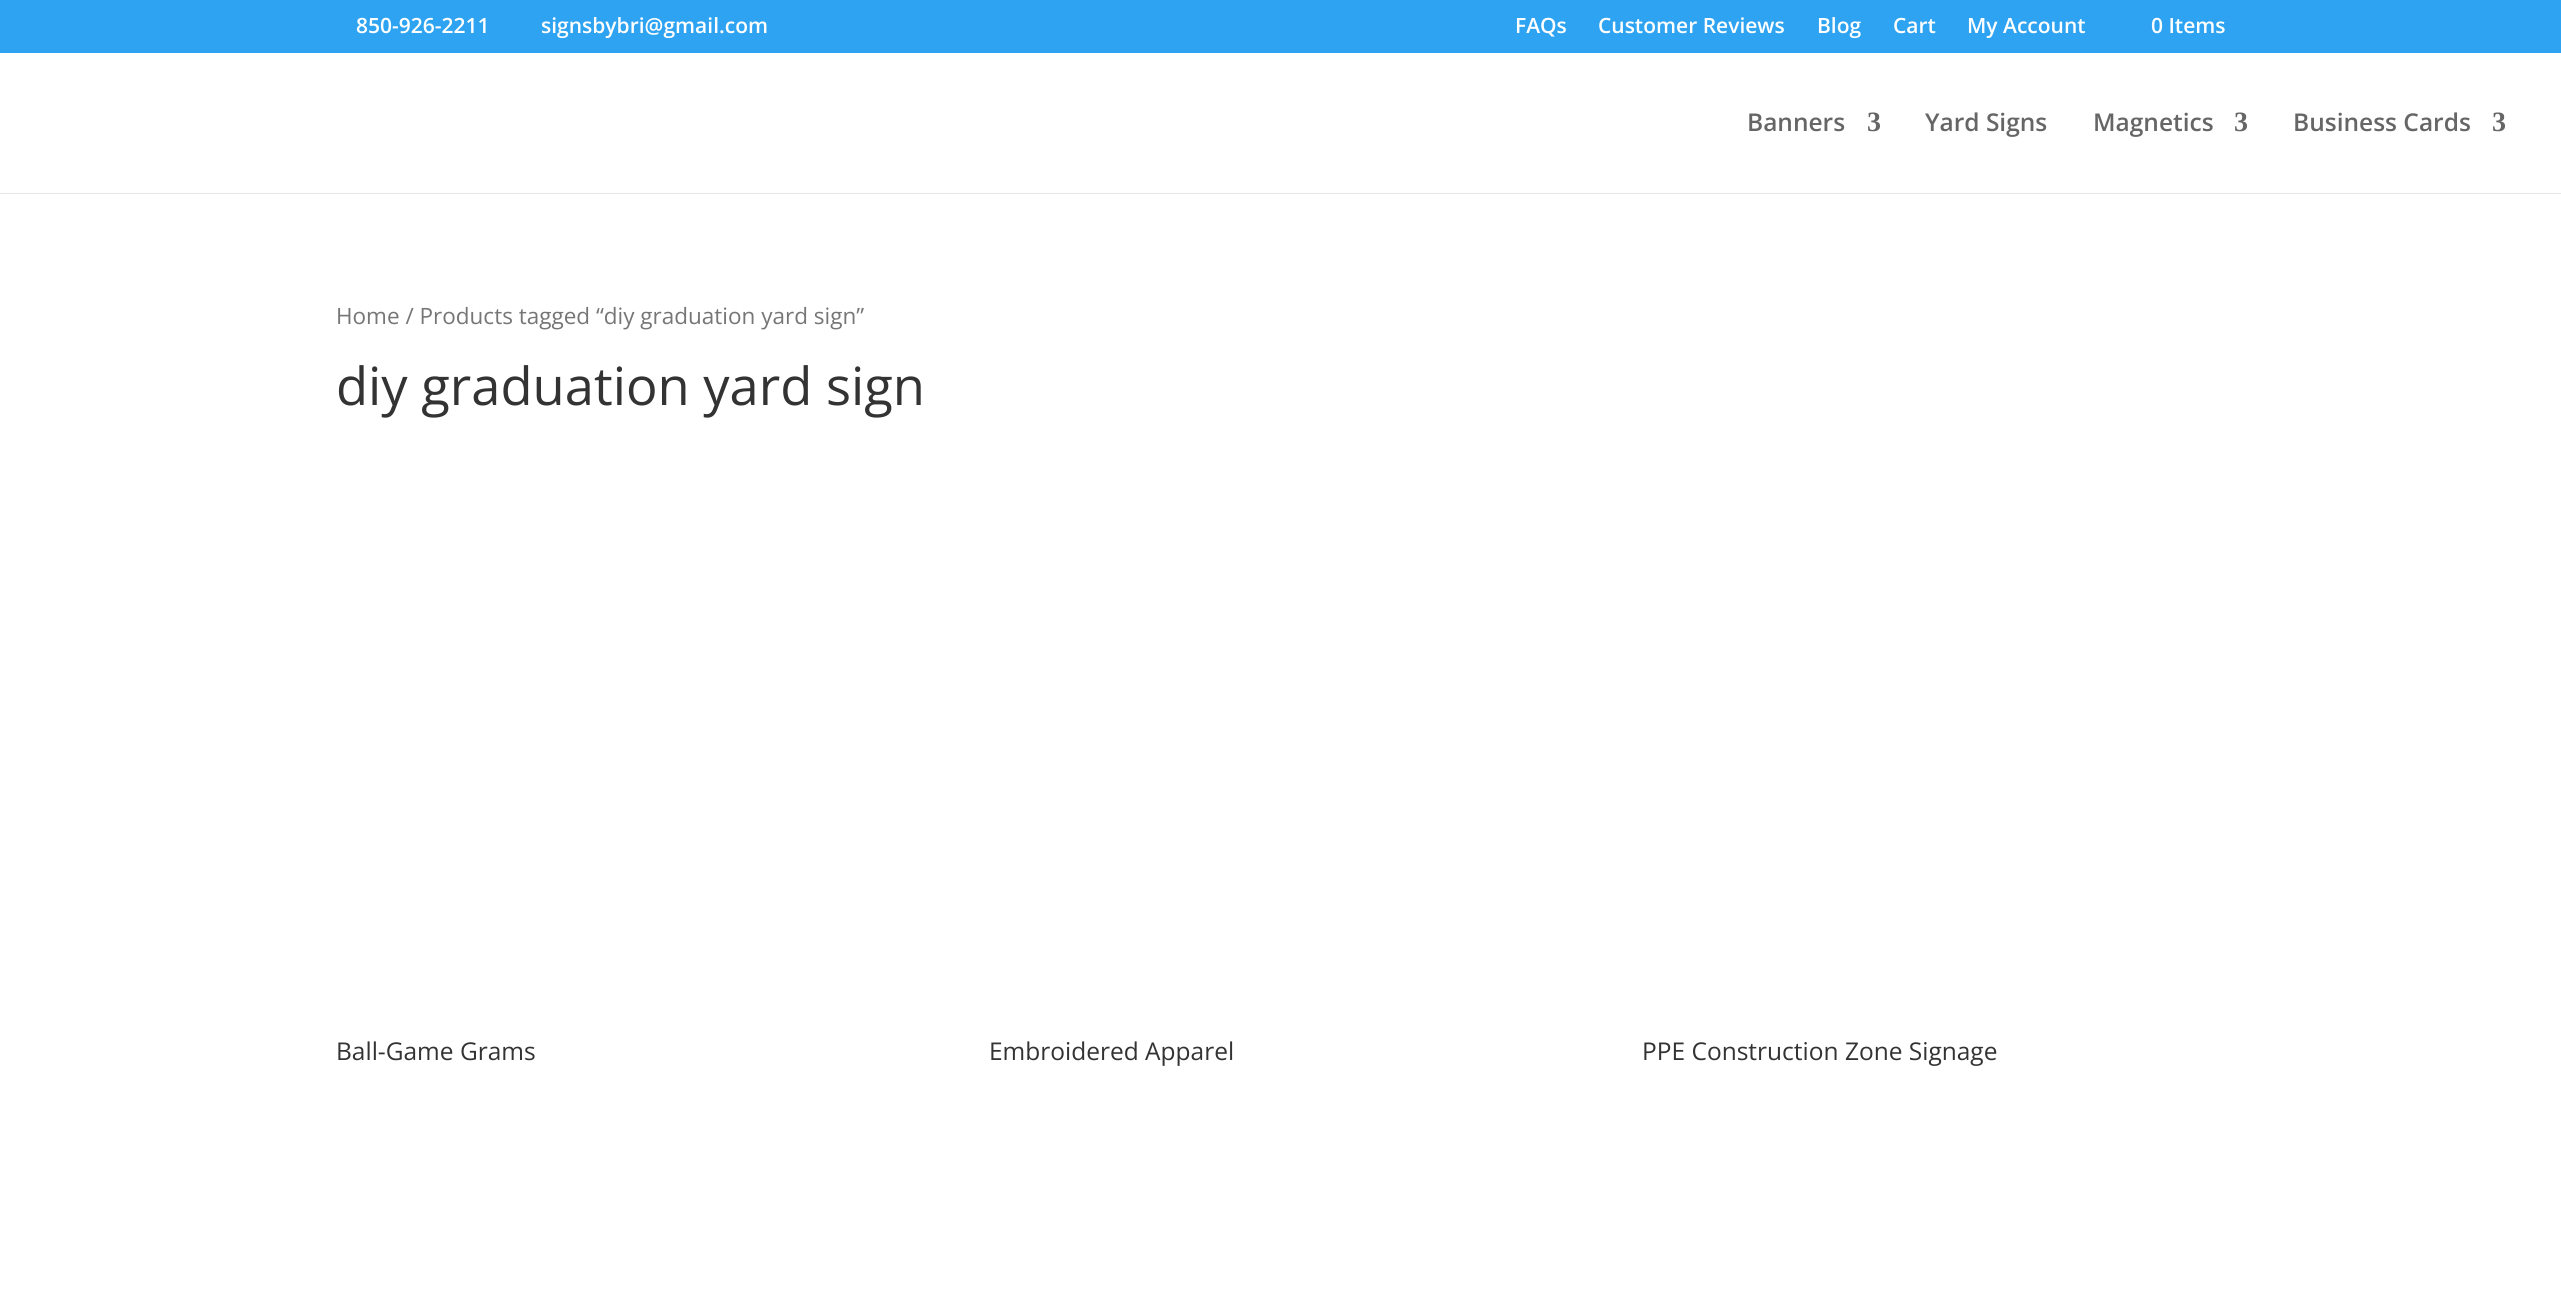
import math
import cairocffi as cairo

surface = cairo.ImageSurface(cairo.FORMAT_RGB24, 2561, 1316)
ctx = cairo.Context(surface)
options = cairo.FontOptions()
options.set_hint_metrics(cairo.HINT_METRICS_OFF)
options.set_hint_style(cairo.HINT_STYLE_NONE)
ctx.set_font_options(options)
ctx.set_miter_limit(4)


def rgb(r, g, b):
    ctx.set_source_rgb(r / 255, g / 255, b / 255)


def face(family, size, italic, bold):
    ctx.select_font_face(family, cairo.FONT_SLANT_ITALIC if italic else cairo.FONT_SLANT_NORMAL, cairo.FONT_WEIGHT_BOLD if bold else cairo.FONT_WEIGHT_NORMAL)
    ctx.set_font_size(size)


def label(x, y, s):
    ctx.move_to(x, y)
    ctx.show_text(s)


def rect(x, y, w, h):
    ctx.rectangle(x, y, w, h)
    ctx.fill()


rgb(255, 255, 255)
ctx.paint()
rgb(46, 163, 242)
rect(0, 0, 2561, 53)
face('Open Sans SemiBold', 21, 0, 0)
rgb(255, 255, 255)
label(356, 33, '850-926-2211')
label(541, 33, 'signsbybri@gmail.com')
label(1515, 33, 'FAQs')
label(1598, 33, 'Customer Reviews')
label(1817, 33, 'Blog')
label(1893, 33, 'Cart')
label(1967, 33, 'My Account')
label(2151, 33, '0 Items')
rgb(230, 230, 230)
rect(0, 193, 2561, 1)
face('Open Sans SemiBold', 24.5, 0, 0)
rgb(102, 102, 102)
label(1747, 131, 'Banners')
face('Liberation Serif', 28, 0, 1)
label(1867, 131, '3')
face('Open Sans SemiBold', 24.5, 0, 0)
label(1925, 131, 'Yard Signs')
label(2093, 131, 'Magnetics')
face('Liberation Serif', 28, 0, 1)
label(2234, 131, '3')
face('Open Sans SemiBold', 24.5, 0, 0)
label(2293, 131, 'Business Cards')
face('Liberation Serif', 28, 0, 1)
label(2492, 131, '3')
face('Open Sans', 22.5, 0, 0)
rgb(118, 118, 118)
label(336, 324, 'Home / Products tagged “diy graduation yard sign”')
face('Open Sans', 52.5, 0, 0)
rgb(51, 51, 51)
label(336, 405, 'diy graduation yard sign')
face('Open Sans', 24.5, 0, 0)
label(336, 1060, 'Ball-Game Grams')
label(989, 1060, 'Embroidered Apparel')
label(1642, 1060, 'PPE Construction Zone Signage')
surface.write_to_png('render.png')
